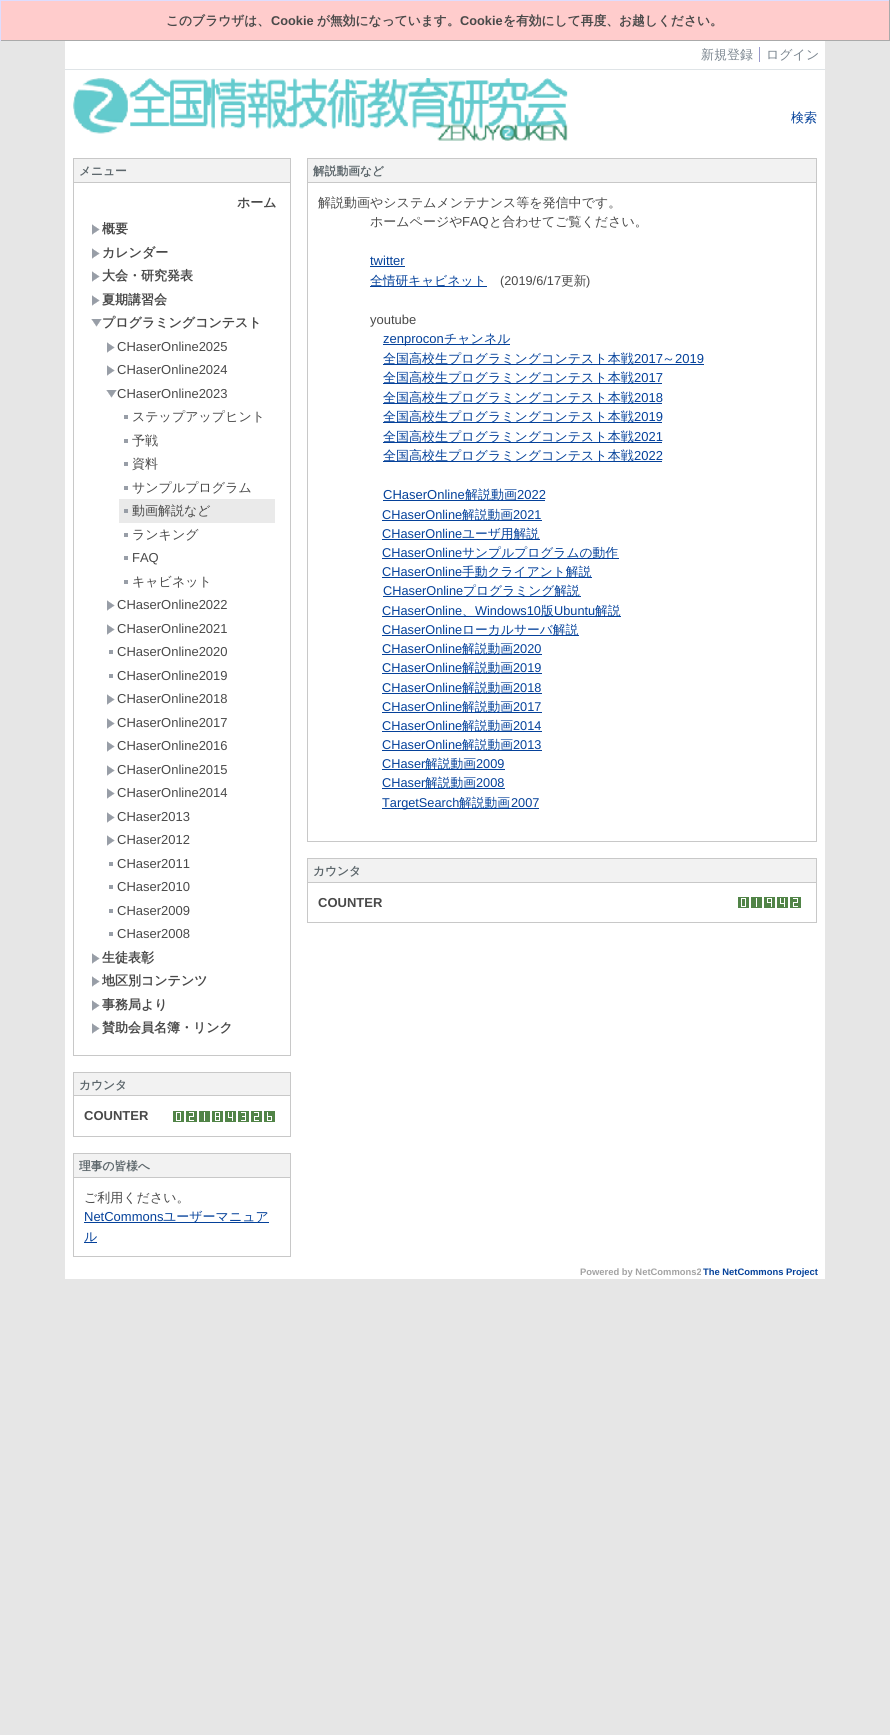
import math
import cairocffi as cairo

surface = cairo.ImageSurface(cairo.FORMAT_RGB24, 890, 1735)
ctx = cairo.Context(surface)
options = cairo.FontOptions()
options.set_hint_metrics(cairo.HINT_METRICS_OFF)
options.set_hint_style(cairo.HINT_STYLE_NONE)
ctx.set_font_options(options)
ctx.set_miter_limit(4)


def rgb(r, g, b):
    ctx.set_source_rgb(r / 255, g / 255, b / 255)


def face(family, size, italic, bold):
    ctx.select_font_face(family, cairo.FONT_SLANT_ITALIC if italic else cairo.FONT_SLANT_NORMAL, cairo.FONT_WEIGHT_BOLD if bold else cairo.FONT_WEIGHT_NORMAL)
    ctx.set_font_size(size)


def label(x, y, s):
    ctx.move_to(x, y)
    ctx.show_text(s)


def rect(x, y, w, h):
    ctx.rectangle(x, y, w, h)
    ctx.fill()


def image(path, x, y, w, h):
    ctx.save()
    ctx.set_source_surface(cairo.ImageSurface.create_from_png(path), x, y)
    ctx.rectangle(x, y, w, h)
    ctx.fill()
    ctx.restore()


rgb(230, 230, 230)
ctx.paint()
rgb(255, 204, 204)
rect(1, 1, 888, 39)
rgb(221, 221, 255)
rect(0, 0, 890, 1)
rgb(170, 170, 170)
rect(889, 0, 1, 41)
rect(0, 40, 890, 1)
rgb(221, 221, 255)
rect(0, 0, 1, 41)
face('WenQuanYi Zen Hei', 12.75, 0, 1)
rgb(73, 73, 73)
label(166, 25, 'このブラウザは、')
face('Liberation Sans', 12.75, 0, 1)
label(271, 25, 'Cookie')
face('WenQuanYi Zen Hei', 12.75, 0, 1)
label(317, 25, 'が無効になっています。')
face('Liberation Sans', 12.75, 0, 1)
label(460, 25, 'Cookie')
face('WenQuanYi Zen Hei', 12.75, 0, 1)
label(503, 25, 'を有効にして再度、お越しください。')
rgb(255, 255, 255)
rect(65, 41, 760, 28)
rgb(223, 228, 231)
rect(65, 69, 760, 1)
face('WenQuanYi Zen Hei Medium', 13, 0, 0)
rgb(122, 133, 143)
label(701, 59, '新規登録')
label(766, 59, 'ログイン')
rgb(153, 153, 204)
rect(759, 47, 1, 15)
rgb(255, 255, 255)
rect(65, 70, 760, 80)
image('image0.png', 73, 78, 495, 63)
rgb(4, 65, 154)
label(791, 122, '検索')
rgb(255, 255, 255)
rect(65, 150, 760, 1129)
rgb(200, 200, 200)
rect(73, 158, 218, 1)
rect(290, 158, 1, 898)
rect(73, 1055, 218, 1)
rect(73, 158, 1, 898)
rgb(242, 242, 242)
rect(74, 159, 216, 23)
rgb(200, 200, 200)
rect(73, 182, 218, 1)
face('WenQuanYi Zen Hei', 11.75, 0, 1)
rgb(92, 102, 107)
label(79, 175, 'メニュー')
face('WenQuanYi Zen Hei', 13, 0, 1)
rgb(73, 73, 73)
label(237, 207, 'ホーム')
image('image1.png', 92, 224, 8, 11)
label(102, 233, '概要')
image('image1.png', 92, 248, 8, 11)
label(102, 257, 'カレンダー')
image('image1.png', 92, 271, 8, 11)
label(102, 280, '大会・研究発表')
image('image1.png', 92, 295, 8, 11)
label(102, 304, '夏期講習会')
image('image2.png', 91, 319, 11, 8)
label(102, 327, 'プログラミングコンテスト')
image('image1.png', 107, 342, 8, 11)
face('Liberation Sans', 13, 0, 0)
label(117, 351, 'CHaserOnline2025')
image('image1.png', 107, 365, 8, 11)
label(117, 374, 'CHaserOnline2024')
image('image2.png', 106, 390, 11, 8)
label(117, 398, 'CHaserOnline2023')
rgb(152, 158, 167)
rect(124, 415, 4, 4)
face('WenQuanYi Zen Hei Medium', 13, 0, 0)
rgb(73, 73, 73)
label(132, 421, 'ステップアップヒント')
rgb(152, 158, 167)
rect(124, 439, 4, 4)
rgb(73, 73, 73)
label(132, 445, '予戦')
rgb(152, 158, 167)
rect(124, 462, 4, 4)
rgb(73, 73, 73)
label(132, 468, '資料')
rgb(152, 158, 167)
rect(124, 486, 4, 4)
rgb(73, 73, 73)
label(132, 492, 'サンプルプログラム')
rgb(234, 234, 234)
rect(119, 499, 156, 24)
rgb(152, 158, 167)
rect(124, 509, 4, 4)
rgb(73, 73, 73)
label(132, 515, '動画解説など')
rgb(152, 158, 167)
rect(124, 533, 4, 4)
rgb(73, 73, 73)
label(132, 539, 'ランキング')
rgb(152, 158, 167)
rect(124, 556, 4, 4)
face('Liberation Sans', 13, 0, 0)
rgb(73, 73, 73)
label(132, 562, 'FAQ')
rgb(152, 158, 167)
rect(124, 580, 4, 4)
face('WenQuanYi Zen Hei Medium', 13, 0, 0)
rgb(73, 73, 73)
label(132, 586, 'キャビネット')
image('image1.png', 107, 600, 8, 11)
face('Liberation Sans', 13, 0, 0)
label(117, 609, 'CHaserOnline2022')
image('image1.png', 107, 624, 8, 11)
label(117, 633, 'CHaserOnline2021')
rgb(152, 158, 167)
rect(109, 650, 4, 4)
rgb(73, 73, 73)
label(117, 656, 'CHaserOnline2020')
rgb(152, 158, 167)
rect(109, 674, 4, 4)
rgb(73, 73, 73)
label(117, 680, 'CHaserOnline2019')
image('image1.png', 107, 694, 8, 11)
label(117, 703, 'CHaserOnline2018')
image('image1.png', 107, 718, 8, 11)
label(117, 727, 'CHaserOnline2017')
image('image1.png', 107, 741, 8, 11)
label(117, 750, 'CHaserOnline2016')
image('image1.png', 107, 765, 8, 11)
label(117, 774, 'CHaserOnline2015')
image('image1.png', 107, 788, 8, 11)
label(117, 797, 'CHaserOnline2014')
image('image1.png', 107, 812, 8, 11)
label(117, 821, 'CHaser2013')
image('image1.png', 107, 835, 8, 11)
label(117, 844, 'CHaser2012')
rgb(152, 158, 167)
rect(109, 862, 4, 4)
rgb(73, 73, 73)
label(117, 868, 'CHaser2011')
rgb(152, 158, 167)
rect(109, 885, 4, 4)
rgb(73, 73, 73)
label(117, 891, 'CHaser2010')
rgb(152, 158, 167)
rect(109, 909, 4, 4)
rgb(73, 73, 73)
label(117, 915, 'CHaser2009')
rgb(152, 158, 167)
rect(109, 932, 4, 4)
rgb(73, 73, 73)
label(117, 938, 'CHaser2008')
image('image1.png', 92, 953, 8, 11)
face('WenQuanYi Zen Hei', 13, 0, 1)
label(102, 962, '生徒表彰')
image('image1.png', 92, 976, 8, 11)
label(102, 985, '地区別コンテンツ')
image('image1.png', 92, 1000, 8, 11)
label(102, 1009, '事務局より')
image('image1.png', 92, 1023, 8, 11)
label(102, 1032, '賛助会員名簿・リンク')
rgb(200, 200, 200)
rect(73, 1072, 218, 1)
rect(290, 1072, 1, 65)
rect(73, 1136, 218, 1)
rect(73, 1072, 1, 65)
rgb(242, 242, 242)
rect(74, 1073, 216, 22)
rgb(200, 200, 200)
rect(73, 1095, 218, 1)
face('WenQuanYi Zen Hei', 11.75, 0, 1)
rgb(92, 102, 107)
label(79, 1089, 'カウンタ')
face('Liberation Sans', 13, 0, 1)
rgb(73, 73, 73)
label(84, 1120, 'COUNTER')
image('image3.png', 173, 1111, 11, 11)
image('image4.png', 186, 1111, 11, 11)
image('image5.png', 199, 1111, 11, 11)
image('image6.png', 212, 1111, 11, 11)
image('image7.png', 225, 1111, 11, 11)
image('image8.png', 238, 1111, 11, 11)
image('image4.png', 251, 1111, 11, 11)
image('image9.png', 264, 1111, 11, 11)
rgb(200, 200, 200)
rect(73, 1153, 218, 1)
rect(290, 1153, 1, 104)
rect(73, 1256, 218, 1)
rect(73, 1153, 1, 104)
rgb(242, 242, 242)
rect(74, 1154, 216, 23)
rgb(200, 200, 200)
rect(73, 1177, 218, 1)
face('WenQuanYi Zen Hei', 11.75, 0, 1)
rgb(92, 102, 107)
label(79, 1170, '理事の皆様へ')
face('WenQuanYi Zen Hei Medium', 13, 0, 0)
rgb(73, 73, 73)
label(84, 1202, 'ご利用ください。')
face('Liberation Sans', 13, 0, 0)
rgb(4, 65, 154)
label(84, 1221, 'NetCommons')
rect(84, 1222, 185, 1)
face('WenQuanYi Zen Hei Medium', 13, 0, 0)
label(163, 1221, 'ユーザーマニュア')
label(84, 1241, 'ル')
rect(84, 1242, 13, 1)
rgb(200, 200, 200)
rect(307, 158, 510, 1)
rect(816, 158, 1, 684)
rect(307, 841, 510, 1)
rect(307, 158, 1, 684)
rgb(242, 242, 242)
rect(308, 159, 508, 23)
rgb(200, 200, 200)
rect(307, 182, 510, 1)
face('WenQuanYi Zen Hei', 11.75, 0, 1)
rgb(92, 102, 107)
label(313, 175, '解説動画など')
face('WenQuanYi Zen Hei Medium', 13, 0, 0)
rgb(73, 73, 73)
label(318, 207, '解説動画やシステムメンテナンス等を発信中です。')
label(370, 226, 'ホームページや')
face('Liberation Sans', 13, 0, 0)
label(462, 226, 'FAQ')
face('WenQuanYi Zen Hei Medium', 13, 0, 0)
label(489, 226, 'と合わせてご覧ください。')
face('Liberation Sans', 13, 0, 0)
rgb(4, 65, 154)
label(370, 265, 'twitter')
rect(370, 266, 35, 1)
rect(370, 286, 117, 1)
face('WenQuanYi Zen Hei Medium', 12.75, 0, 0)
label(370, 285, '全情研キャビネット')
face('Liberation Sans', 12.75, 0, 0)
rgb(73, 73, 73)
label(500, 285, '(2019/6/17')
face('WenQuanYi Zen Hei Medium', 12.75, 0, 0)
label(561, 285, '更新')
face('Liberation Sans', 12.75, 0, 0)
label(586, 285, ')')
face('Liberation Sans', 13, 0, 0)
label(370, 324, 'youtube')
rgb(4, 65, 154)
rect(383, 344, 127, 1)
label(383, 343, 'zenprocon')
face('WenQuanYi Zen Hei Medium', 13, 0, 0)
label(444, 343, 'チャンネル')
rect(383, 364, 321, 1)
label(383, 363, '全国高校生プログラミングコンテスト本戦')
face('Liberation Sans', 13, 0, 0)
label(634, 363, '2017')
face('WenQuanYi Zen Hei Medium', 13, 0, 0)
label(662, 363, '～')
face('Liberation Sans', 13, 0, 0)
label(675, 363, '2019')
rect(383, 383, 279, 1)
face('WenQuanYi Zen Hei Medium', 13, 0, 0)
label(383, 382, '全国高校生プログラミングコンテスト本戦')
face('Liberation Sans', 13, 0, 0)
label(634, 382, '2017')
rect(383, 403, 279, 1)
face('WenQuanYi Zen Hei Medium', 13, 0, 0)
label(383, 402, '全国高校生プログラミングコンテスト本戦')
face('Liberation Sans', 13, 0, 0)
label(634, 402, '2018')
rect(383, 422, 279, 1)
face('WenQuanYi Zen Hei Medium', 13, 0, 0)
label(383, 421, '全国高校生プログラミングコンテスト本戦')
face('Liberation Sans', 13, 0, 0)
label(634, 421, '2019')
rect(383, 442, 279, 1)
face('WenQuanYi Zen Hei Medium', 13, 0, 0)
label(383, 441, '全国高校生プログラミングコンテスト本戦')
face('Liberation Sans', 13, 0, 0)
label(634, 441, '2021')
rect(383, 461, 279, 1)
face('WenQuanYi Zen Hei Medium', 13, 0, 0)
label(383, 460, '全国高校生プログラミングコンテスト本戦')
face('Liberation Sans', 13, 0, 0)
label(634, 460, '2022')
label(383, 499, 'CHaserOnline')
rect(383, 500, 162, 1)
face('WenQuanYi Zen Hei Medium', 13, 0, 0)
label(465, 499, '解説動画')
face('Liberation Sans', 13, 0, 0)
label(517, 499, '2022')
face('Liberation Sans', 12.75, 0, 0)
label(382, 519, 'CHaserOnline')
rect(382, 520, 160, 1)
face('WenQuanYi Zen Hei Medium', 12.75, 0, 0)
label(462, 519, '解説動画')
face('Liberation Sans', 12.75, 0, 0)
label(513, 519, '2021')
label(382, 538, 'CHaserOnline')
rect(382, 539, 158, 1)
face('WenQuanYi Zen Hei Medium', 12.75, 0, 0)
label(462, 538, 'ユーザ用解説')
face('Liberation Sans', 12.75, 0, 0)
label(382, 557, 'CHaserOnline')
rect(382, 558, 237, 1)
face('WenQuanYi Zen Hei Medium', 12.75, 0, 0)
label(462, 557, 'サンプルプログラムの動作')
face('Liberation Sans', 12.75, 0, 0)
label(382, 576, 'CHaserOnline')
rect(382, 577, 210, 1)
face('WenQuanYi Zen Hei Medium', 12.75, 0, 0)
label(462, 576, '手動クライアント解説')
face('Liberation Sans', 12.75, 0, 0)
label(383, 595, 'CHaserOnline')
rect(383, 596, 198, 1)
face('WenQuanYi Zen Hei Medium', 12.75, 0, 0)
label(463, 595, 'プログラミング解説')
face('Liberation Sans', 12.75, 0, 0)
label(382, 615, 'CHaserOnline')
rect(382, 616, 239, 1)
face('WenQuanYi Zen Hei Medium', 12.75, 0, 0)
label(462, 615, '、')
face('Liberation Sans', 12.75, 0, 0)
label(475, 615, 'Windows10')
face('WenQuanYi Zen Hei Medium', 12.75, 0, 0)
label(541, 615, '版')
face('Liberation Sans', 12.75, 0, 0)
label(554, 615, 'Ubuntu')
face('WenQuanYi Zen Hei Medium', 12.75, 0, 0)
label(595, 615, '解説')
face('Liberation Sans', 12.75, 0, 0)
label(382, 634, 'CHaserOnline')
rect(382, 635, 197, 1)
face('WenQuanYi Zen Hei Medium', 12.75, 0, 0)
label(462, 634, 'ローカルサーバ解説')
face('Liberation Sans', 12.75, 0, 0)
label(382, 653, 'CHaserOnline')
rect(382, 654, 160, 1)
face('WenQuanYi Zen Hei Medium', 12.75, 0, 0)
label(462, 653, '解説動画')
face('Liberation Sans', 12.75, 0, 0)
label(513, 653, '2020')
label(382, 672, 'CHaserOnline')
rect(382, 673, 160, 1)
face('WenQuanYi Zen Hei Medium', 12.75, 0, 0)
label(462, 672, '解説動画')
face('Liberation Sans', 12.75, 0, 0)
label(513, 672, '2019')
label(382, 692, 'CHaserOnline')
rect(382, 693, 160, 1)
face('WenQuanYi Zen Hei Medium', 12.75, 0, 0)
label(462, 692, '解説動画')
face('Liberation Sans', 12.75, 0, 0)
label(513, 692, '2018')
label(382, 711, 'CHaserOnline')
rect(382, 712, 160, 1)
face('WenQuanYi Zen Hei Medium', 12.75, 0, 0)
label(462, 711, '解説動画')
face('Liberation Sans', 12.75, 0, 0)
label(513, 711, '2017')
label(382, 730, 'CHaserOnline')
rect(382, 731, 160, 1)
face('WenQuanYi Zen Hei Medium', 12.75, 0, 0)
label(462, 730, '解説動画')
face('Liberation Sans', 12.75, 0, 0)
label(513, 730, '2014')
label(382, 749, 'CHaserOnline')
rect(382, 750, 160, 1)
face('WenQuanYi Zen Hei Medium', 12.75, 0, 0)
label(462, 749, '解説動画')
face('Liberation Sans', 12.75, 0, 0)
label(513, 749, '2013')
label(382, 768, 'CHaser')
rect(382, 769, 123, 1)
face('WenQuanYi Zen Hei Medium', 12.75, 0, 0)
label(425, 768, '解説動画')
face('Liberation Sans', 12.75, 0, 0)
label(476, 768, '2009')
label(382, 787, 'CHaser')
rect(382, 788, 123, 1)
face('WenQuanYi Zen Hei Medium', 12.75, 0, 0)
label(425, 787, '解説動画')
face('Liberation Sans', 12.75, 0, 0)
label(476, 787, '2008')
rect(382, 808, 157, 1)
label(382, 807, 'TargetSearch')
face('WenQuanYi Zen Hei Medium', 12.75, 0, 0)
label(459, 807, '解説動画')
face('Liberation Sans', 12.75, 0, 0)
label(511, 807, '2007')
rgb(200, 200, 200)
rect(307, 858, 510, 1)
rect(816, 858, 1, 65)
rect(307, 922, 510, 1)
rect(307, 858, 1, 65)
rgb(242, 242, 242)
rect(308, 859, 508, 23)
rgb(200, 200, 200)
rect(307, 882, 510, 1)
face('WenQuanYi Zen Hei', 11.75, 0, 1)
rgb(92, 102, 107)
label(313, 875, 'カウンタ')
face('Liberation Sans', 13, 0, 1)
rgb(73, 73, 73)
label(318, 907, 'COUNTER')
image('image3.png', 738, 897, 11, 11)
image('image5.png', 751, 897, 11, 11)
image('image10.png', 764, 897, 11, 11)
image('image7.png', 777, 897, 11, 11)
image('image4.png', 790, 897, 11, 11)
face('Liberation Sans', 9.4, 0, 1)
rgb(163, 163, 163)
label(580, 1275, 'Powered by NetCommons2')
rgb(4, 65, 154)
label(703, 1275, 'The NetCommons Project')
surface.write_to_png('render.png')
